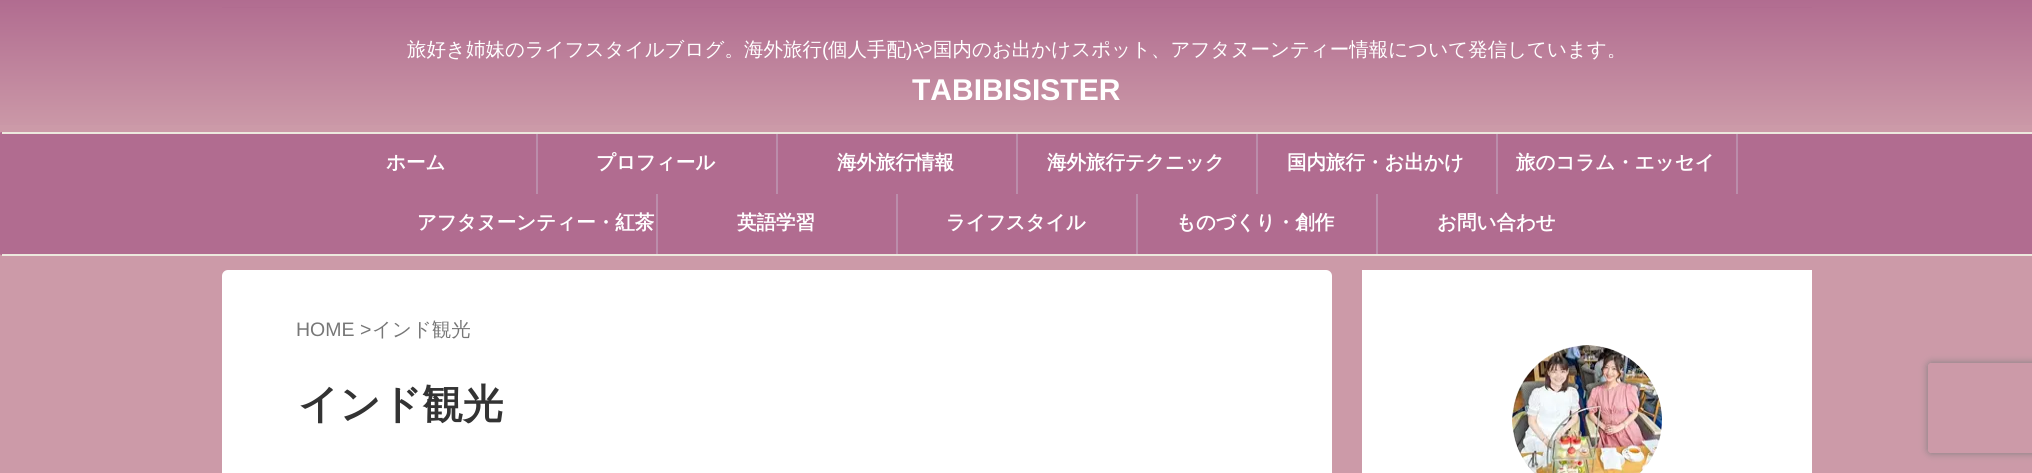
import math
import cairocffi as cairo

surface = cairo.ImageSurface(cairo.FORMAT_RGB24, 2032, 473)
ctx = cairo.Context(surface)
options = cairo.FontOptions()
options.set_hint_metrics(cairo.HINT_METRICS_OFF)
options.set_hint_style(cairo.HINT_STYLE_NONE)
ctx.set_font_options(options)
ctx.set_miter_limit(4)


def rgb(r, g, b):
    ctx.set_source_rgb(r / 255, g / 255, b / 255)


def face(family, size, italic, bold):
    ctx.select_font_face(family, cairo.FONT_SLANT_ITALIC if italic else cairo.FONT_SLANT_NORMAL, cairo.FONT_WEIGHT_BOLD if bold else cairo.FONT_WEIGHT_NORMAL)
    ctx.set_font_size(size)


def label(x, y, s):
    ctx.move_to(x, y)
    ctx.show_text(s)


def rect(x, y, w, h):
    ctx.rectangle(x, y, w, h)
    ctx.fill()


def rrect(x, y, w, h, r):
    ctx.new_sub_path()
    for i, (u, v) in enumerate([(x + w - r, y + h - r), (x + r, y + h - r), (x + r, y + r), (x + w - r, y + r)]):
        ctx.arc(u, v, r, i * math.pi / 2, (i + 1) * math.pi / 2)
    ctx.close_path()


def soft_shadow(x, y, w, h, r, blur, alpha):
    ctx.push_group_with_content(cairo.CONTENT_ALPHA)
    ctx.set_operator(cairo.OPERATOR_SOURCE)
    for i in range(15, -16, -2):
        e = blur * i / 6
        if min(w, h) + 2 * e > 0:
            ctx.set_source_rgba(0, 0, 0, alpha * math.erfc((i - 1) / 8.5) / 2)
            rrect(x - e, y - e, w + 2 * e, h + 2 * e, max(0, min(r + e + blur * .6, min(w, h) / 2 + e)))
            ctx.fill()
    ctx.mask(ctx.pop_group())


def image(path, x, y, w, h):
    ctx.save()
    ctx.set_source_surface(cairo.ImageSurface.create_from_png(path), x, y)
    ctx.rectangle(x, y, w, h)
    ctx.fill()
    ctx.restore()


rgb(204, 154, 168)
ctx.paint()
gradient = cairo.LinearGradient(1016, 0, 1016, 132)
gradient.add_color_stop_rgba(0, 0.694, 0.424, 0.565, 1)
gradient.add_color_stop_rgba(1, 0.8, 0.604, 0.659, 1)
ctx.set_source(gradient)
rect(0, 0, 2032, 125)
rgb(177, 108, 144)
rect(222, 7, 1590, 1)
face('WenQuanYi Zen Hei Medium', 19.5, 0, 0)
rgb(255, 255, 255)
label(407, 56, '旅好き姉妹のライフスタイルブログ。海外旅行')
face('Liberation Sans', 19.5, 0, 0)
label(822, 56, '(')
face('WenQuanYi Zen Hei Medium', 19.5, 0, 0)
label(828, 56, '個人手配')
face('Liberation Sans', 19.5, 0, 0)
label(906, 56, ')')
face('WenQuanYi Zen Hei Medium', 19.5, 0, 0)
label(913, 56, 'や国内のお出かけスポット、アフタヌーンティー情報について発信しています。')
face('Liberation Sans', 30, 0, 1)
label(912, 100, 'TABIBISISTER')
rgb(177, 108, 144)
rrect(0, 132, 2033, 123, 1.5)
ctx.fill()
rgb(237, 233, 222)
rect(2, 132, 2030, 2)
rect(2, 254, 2030, 2)
rgb(187, 141, 171)
rect(536, 134, 2, 60)
face('WenQuanYi Zen Hei', 19.5, 0, 1)
rgb(255, 255, 255)
label(386, 169, 'ホーム')
rgb(187, 141, 171)
rect(776, 134, 2, 60)
rgb(255, 255, 255)
label(596, 169, 'プロフィール')
rgb(187, 141, 171)
rect(1016, 134, 2, 60)
rgb(255, 255, 255)
label(837, 169, '海外旅行情報')
rgb(187, 141, 171)
rect(1256, 134, 2, 60)
rgb(255, 255, 255)
label(1047, 169, '海外旅行テクニック')
rgb(187, 141, 171)
rect(1496, 134, 2, 60)
rgb(255, 255, 255)
label(1287, 169, '国内旅行・お出かけ')
rgb(187, 141, 171)
rect(1736, 134, 2, 60)
rgb(255, 255, 255)
label(1516, 169, '旅のコラム・エッセイ')
rgb(187, 141, 171)
rect(656, 194, 2, 60)
rgb(255, 255, 255)
label(417, 229, 'アフタヌーンティー・紅茶')
rgb(187, 141, 171)
rect(896, 194, 2, 60)
rgb(255, 255, 255)
label(737, 229, '英語学習')
rgb(187, 141, 171)
rect(1136, 194, 2, 60)
rgb(255, 255, 255)
label(946, 229, 'ライフスタイル')
rgb(187, 141, 171)
rect(1376, 194, 2, 60)
rgb(255, 255, 255)
label(1176, 229, 'ものづくり・創作')
label(1437, 229, 'お問い合わせ')
rrect(222, 270, 1110, 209, 6)
ctx.fill()
face('Liberation Sans', 19.5, 0, 0)
rgb(119, 119, 119)
label(296, 336, 'HOME >')
face('WenQuanYi Zen Hei Medium', 19.5, 0, 0)
label(372, 336, 'インド観光')
face('WenQuanYi Zen Hei', 40.5, 0, 1)
rgb(51, 51, 51)
label(298, 418, 'インド観光')
rgb(255, 255, 255)
rect(1362, 270, 450, 203)
image('image0.png', 1512, 345, 150, 128)
ctx.save()
ctx.set_fill_rule(cairo.FILL_RULE_EVEN_ODD)
ctx.new_path()
ctx.move_to(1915, 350)
ctx.line_to(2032, 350)
ctx.line_to(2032, 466)
ctx.line_to(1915, 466)
ctx.close_path()
ctx.move_to(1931, 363)
ctx.line_to(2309, 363)
ctx.curve_to(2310.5, 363, 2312, 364.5, 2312, 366)
ctx.line_to(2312, 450)
ctx.curve_to(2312, 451.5, 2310.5, 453, 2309, 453)
ctx.line_to(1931, 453)
ctx.curve_to(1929.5, 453, 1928, 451.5, 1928, 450)
ctx.line_to(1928, 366)
ctx.curve_to(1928, 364.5, 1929.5, 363, 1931, 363)
ctx.close_path()
ctx.clip()
rgb(128, 128, 128)
soft_shadow(1928, 363, 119, 90, 3, 4, 1)
ctx.restore()
surface.write_to_png('render.png')
